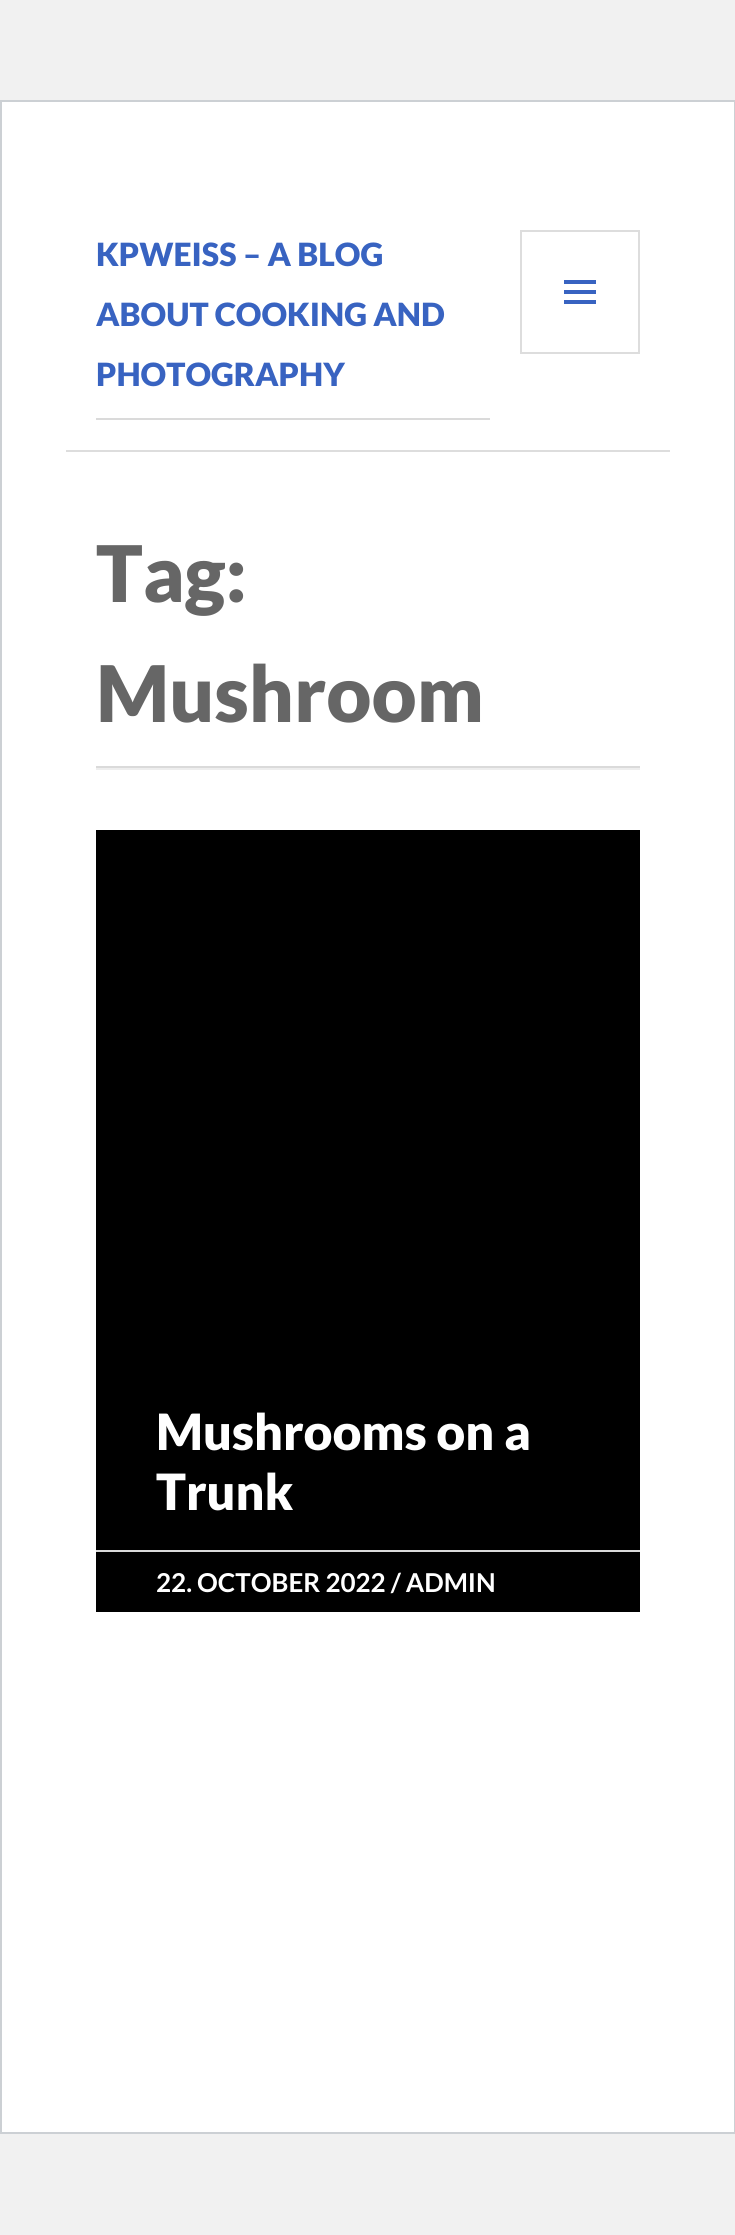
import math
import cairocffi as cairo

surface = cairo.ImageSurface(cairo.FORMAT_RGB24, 735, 2235)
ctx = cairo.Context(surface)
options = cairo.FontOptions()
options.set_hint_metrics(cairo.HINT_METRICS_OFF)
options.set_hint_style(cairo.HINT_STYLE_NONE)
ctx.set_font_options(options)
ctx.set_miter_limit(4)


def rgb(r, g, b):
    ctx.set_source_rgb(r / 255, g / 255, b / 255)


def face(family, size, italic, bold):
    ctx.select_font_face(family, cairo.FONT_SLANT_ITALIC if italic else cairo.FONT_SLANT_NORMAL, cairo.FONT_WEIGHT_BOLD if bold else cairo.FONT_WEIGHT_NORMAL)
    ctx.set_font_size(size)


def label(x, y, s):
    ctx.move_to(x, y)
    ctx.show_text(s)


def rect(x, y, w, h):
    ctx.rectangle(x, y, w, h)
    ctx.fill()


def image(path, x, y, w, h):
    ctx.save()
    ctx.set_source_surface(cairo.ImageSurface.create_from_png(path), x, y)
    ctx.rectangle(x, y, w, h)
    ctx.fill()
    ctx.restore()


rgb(241, 241, 241)
ctx.paint()
rgb(255, 255, 255)
ctx.rectangle(1, 101, 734, 2032)
ctx.fill_preserve()
rgb(204, 208, 212)
ctx.stroke()
rgb(221, 221, 221)
rect(66, 450, 604, 2)
rgb(218, 218, 218)
rect(96, 418, 394, 2)
face('Lato Black', 32, 0, 0)
rgb(56, 99, 193)
label(96, 266, 'KPWEISS – A BLOG')
label(96, 326, 'ABOUT COOKING AND')
label(96, 386, 'PHOTOGRAPHY')
ctx.rectangle(521, 231, 118, 122)
rgb(221, 221, 221)
ctx.stroke()
image('image0.png', 564, 280, 32, 24)
rgb(238, 238, 238)
rect(96, 768, 544, 2)
rgb(218, 218, 218)
rect(96, 766, 544, 2)
face('Lato Black', 78, 0, 0)
rgb(102, 102, 102)
label(96, 602, 'Tag:')
label(96, 722, 'Mushroom')
rgb(0, 0, 0)
rect(96, 830, 544, 782)
rgb(218, 218, 218)
rect(96, 1550, 544, 2)
face('Lato Black', 50, 0, 0)
rgb(255, 255, 255)
label(156, 1450, 'Mushrooms on a')
label(156, 1510, 'Trunk')
face('Lato', 26, 0, 1)
label(156, 1592, '22. OCTOBER 2022 / ADMIN')
surface.write_to_png('render.png')
